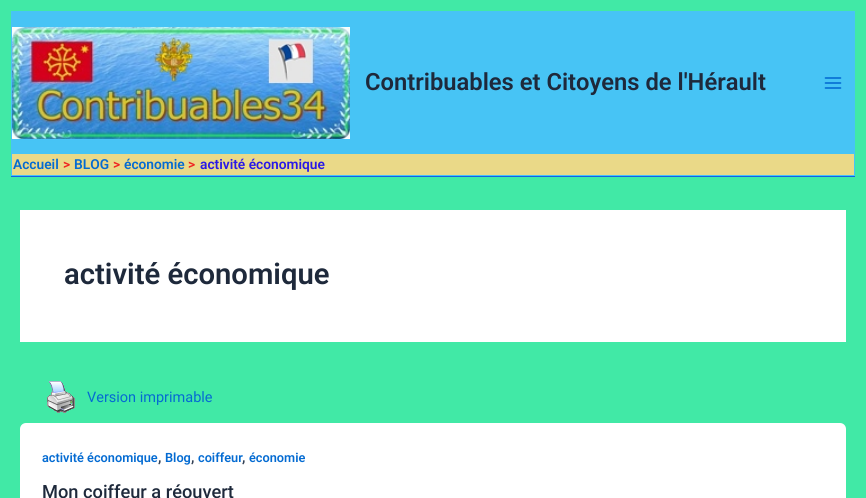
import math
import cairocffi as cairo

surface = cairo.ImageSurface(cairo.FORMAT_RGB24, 866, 498)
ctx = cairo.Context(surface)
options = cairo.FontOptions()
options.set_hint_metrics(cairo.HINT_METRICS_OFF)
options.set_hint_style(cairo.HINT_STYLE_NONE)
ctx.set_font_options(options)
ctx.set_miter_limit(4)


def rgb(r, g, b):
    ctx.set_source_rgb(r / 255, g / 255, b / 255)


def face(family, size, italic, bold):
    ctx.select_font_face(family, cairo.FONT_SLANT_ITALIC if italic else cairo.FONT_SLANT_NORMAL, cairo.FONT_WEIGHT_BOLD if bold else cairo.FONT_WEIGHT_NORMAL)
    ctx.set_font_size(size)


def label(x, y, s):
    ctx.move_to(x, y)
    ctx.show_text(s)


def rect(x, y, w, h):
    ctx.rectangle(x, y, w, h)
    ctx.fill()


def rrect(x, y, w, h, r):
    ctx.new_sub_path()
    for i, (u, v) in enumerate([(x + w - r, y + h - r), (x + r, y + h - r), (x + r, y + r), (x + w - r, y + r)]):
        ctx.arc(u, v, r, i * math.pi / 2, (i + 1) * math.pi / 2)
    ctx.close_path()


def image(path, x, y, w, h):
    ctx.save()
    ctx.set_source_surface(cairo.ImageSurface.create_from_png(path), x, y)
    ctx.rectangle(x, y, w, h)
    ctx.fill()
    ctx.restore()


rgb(65, 233, 166)
ctx.paint()
rgb(71, 196, 245)
rect(11, 11, 844, 165)
rgb(19, 97, 231)
rect(11, 176, 844, 1)
image('image0.png', 12, 27, 338, 112)
face('Roboto SemiBold', 23.75, 0, 0)
rgb(30, 41, 59)
label(365, 90, 'Contribuables et Citoyens de l\'Hérault')
image('image1.png', 824, 77, 18, 12)
rgb(234, 217, 136)
rect(12, 154, 842, 21)
face('Roboto SemiBold', 13.75, 0, 0)
rgb(4, 107, 210)
label(13, 169, 'Accueil')
rgb(240, 34, 34)
label(63, 169, '>')
rgb(4, 107, 210)
label(74, 169, 'BLOG')
rgb(240, 34, 34)
label(113, 169, '>')
rgb(4, 107, 210)
label(124, 169, 'économie')
rgb(240, 34, 34)
label(188, 169, '>')
rgb(41, 24, 231)
label(200, 169, 'activité économique')
rgb(255, 255, 255)
rect(20, 210, 826, 132)
face('Roboto SemiBold', 29.25, 0, 0)
rgb(30, 41, 59)
label(64, 284, 'activité économique')
image('image2.png', 47, 381, 28, 32)
face('Roboto', 14.5, 0, 0)
rgb(4, 107, 210)
label(87, 402, 'Version imprimable')
rgb(255, 255, 255)
rrect(20, 423, 826, 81, 6)
ctx.fill()
face('Roboto SemiBold', 12.75, 0, 0)
rgb(4, 107, 210)
label(42, 462, 'activité économique')
face('Roboto SemiBold', 14.5, 0, 0)
rgb(51, 65, 85)
label(158, 462, ',')
face('Roboto SemiBold', 12.75, 0, 0)
rgb(4, 107, 210)
label(165, 462, 'Blog')
face('Roboto SemiBold', 14.5, 0, 0)
rgb(51, 65, 85)
label(191, 462, ',')
face('Roboto SemiBold', 12.75, 0, 0)
rgb(4, 107, 210)
label(198, 462, 'coiffeur')
face('Roboto SemiBold', 14.5, 0, 0)
rgb(51, 65, 85)
label(242, 462, ',')
face('Roboto SemiBold', 12.75, 0, 0)
rgb(4, 107, 210)
label(249, 462, 'économie')
face('Roboto Medium', 18.25, 0, 0)
rgb(30, 41, 59)
label(42, 498, 'Mon coiffeur a réouvert')
surface.write_to_png('render.png')
